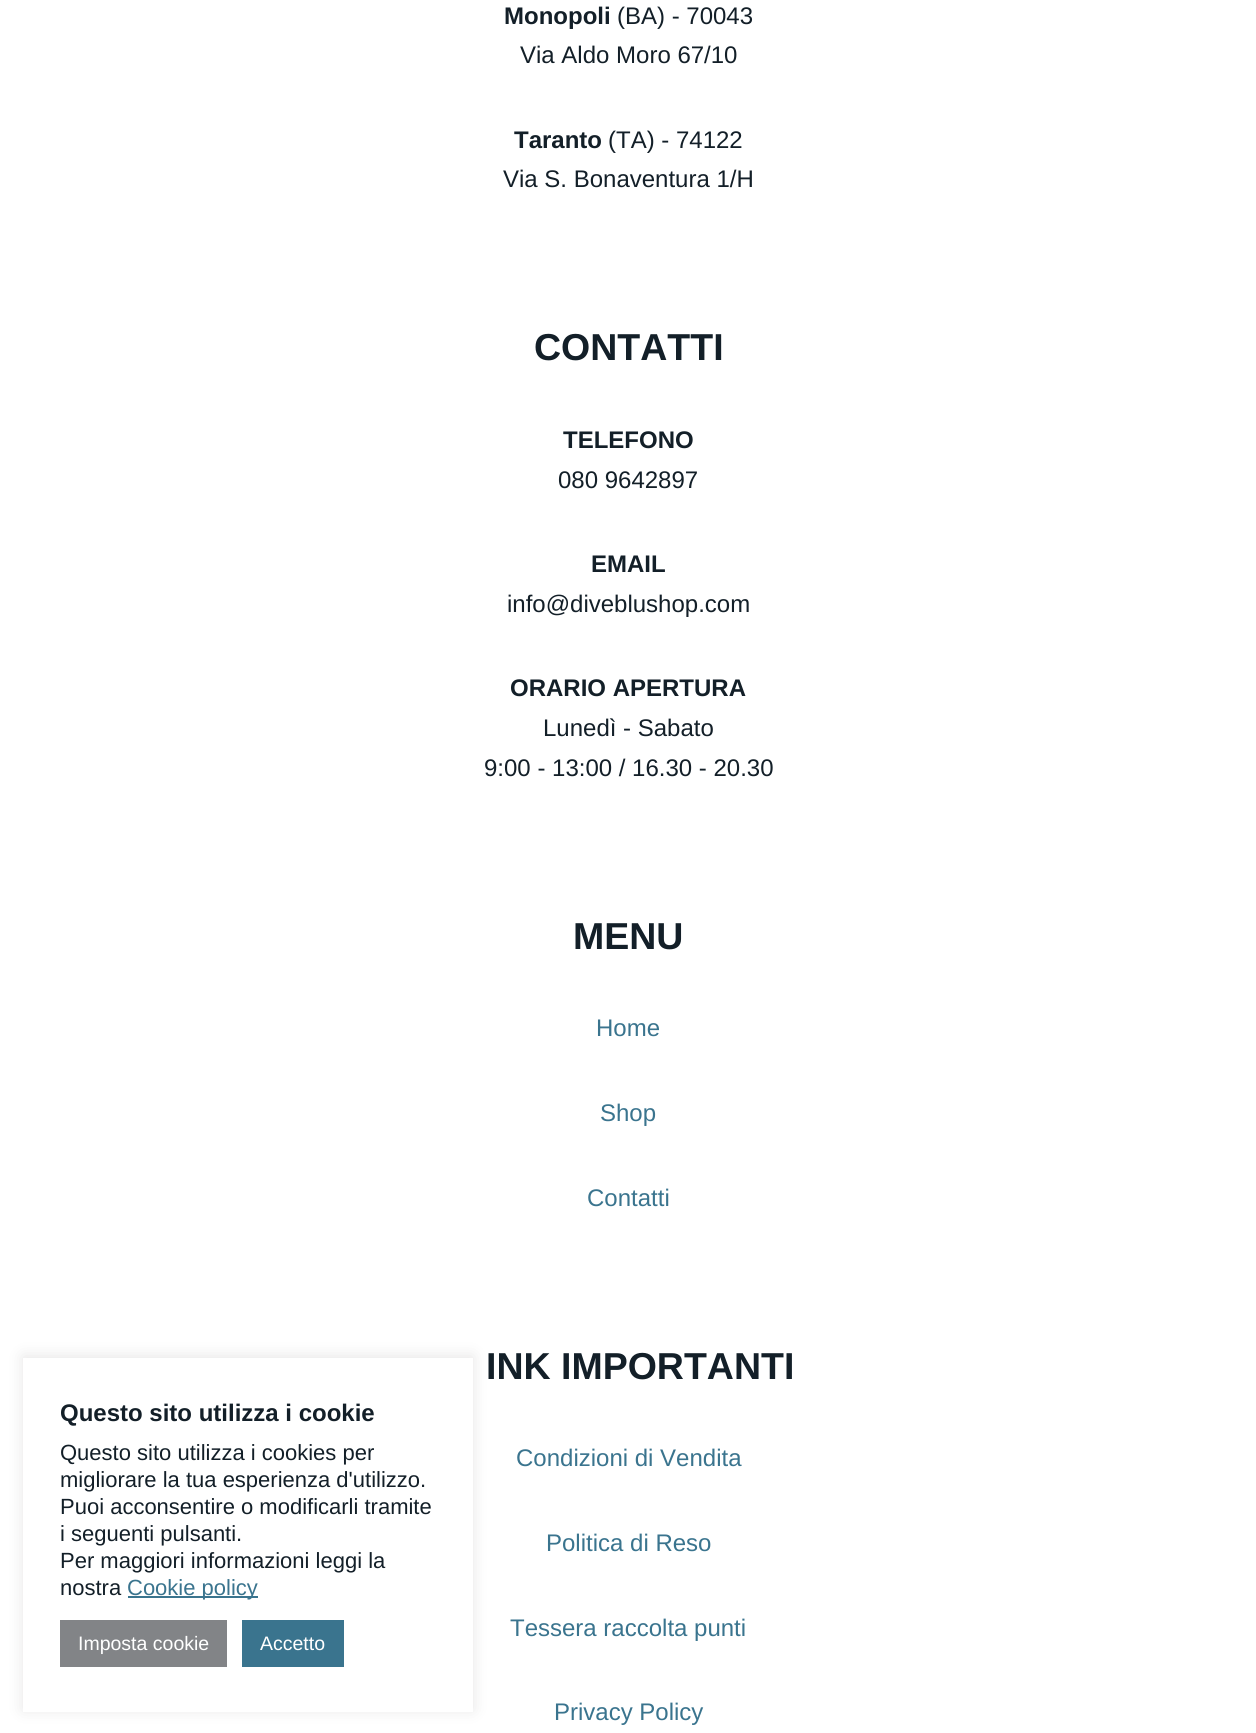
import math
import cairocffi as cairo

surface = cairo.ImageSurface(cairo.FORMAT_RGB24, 1256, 1733)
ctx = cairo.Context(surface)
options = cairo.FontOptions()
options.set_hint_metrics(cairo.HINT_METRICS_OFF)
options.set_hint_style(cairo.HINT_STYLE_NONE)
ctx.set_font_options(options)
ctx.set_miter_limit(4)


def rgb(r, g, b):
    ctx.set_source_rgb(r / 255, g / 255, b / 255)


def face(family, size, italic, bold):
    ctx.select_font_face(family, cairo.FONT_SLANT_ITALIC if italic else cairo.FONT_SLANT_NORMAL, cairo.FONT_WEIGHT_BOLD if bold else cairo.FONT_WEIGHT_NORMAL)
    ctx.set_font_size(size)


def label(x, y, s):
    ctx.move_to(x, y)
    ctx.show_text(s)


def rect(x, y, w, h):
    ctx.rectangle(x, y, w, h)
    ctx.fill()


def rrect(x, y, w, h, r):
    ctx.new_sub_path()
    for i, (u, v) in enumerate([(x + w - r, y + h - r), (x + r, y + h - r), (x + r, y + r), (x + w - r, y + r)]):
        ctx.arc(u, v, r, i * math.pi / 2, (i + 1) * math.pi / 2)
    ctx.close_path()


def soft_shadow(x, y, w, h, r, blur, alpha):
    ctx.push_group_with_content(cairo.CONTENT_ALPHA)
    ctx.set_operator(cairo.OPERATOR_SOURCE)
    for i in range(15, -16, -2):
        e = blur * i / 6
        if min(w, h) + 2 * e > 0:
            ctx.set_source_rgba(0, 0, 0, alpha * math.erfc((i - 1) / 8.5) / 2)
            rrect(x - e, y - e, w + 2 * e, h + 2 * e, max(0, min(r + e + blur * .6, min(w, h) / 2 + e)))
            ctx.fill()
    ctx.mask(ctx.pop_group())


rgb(255, 255, 255)
ctx.paint()
rgb(172, 171, 171)
soft_shadow(23, 1356, 450, 354, 0, 7.5, 0.3)
rgb(255, 255, 255)
rect(23, 1358, 450, 354)
face('Liberation Sans', 24, 0, 1)
rgb(19, 31, 40)
label(60, 1421, 'Questo sito utilizza i cookie')
face('Liberation Sans', 22, 0, 0)
label(60, 1460, 'Questo sito utilizza i cookies per')
label(60, 1487, 'migliorare la tua esperienza d\'utilizzo.')
label(60, 1514, 'Puoi acconsentire o modificarli tramite')
label(60, 1541, 'i seguenti pulsanti.')
label(60, 1568, 'Per maggiori informazioni leggi la')
label(60, 1595, 'nostra')
rgb(58, 116, 142)
rect(128, 1596, 130, 2)
label(127, 1595, 'Cookie policy')
rgb(130, 132, 135)
rect(60, 1620, 167, 47)
face('Liberation Sans', 19.5, 0, 0)
rgb(255, 255, 255)
label(78, 1650, 'Imposta cookie')
rgb(58, 116, 142)
rect(242, 1620, 102, 47)
rgb(255, 255, 255)
label(260, 1650, 'Accetto')
face('Liberation Sans', 24, 0, 1)
rgb(19, 31, 40)
label(504, 24, 'Monopoli')
face('Liberation Sans', 24, 0, 0)
label(617, 24, '(BA) - 70043')
label(520, 63, 'Via Aldo Moro 67/10')
face('Liberation Sans', 24, 0, 1)
label(514, 148, 'Taranto')
face('Liberation Sans', 24, 0, 0)
label(608, 148, '(TA) - 74122')
label(503, 187, 'Via S. Bonaventura 1/H')
face('Liberation Sans', 37.5, 0, 1)
label(534, 360, 'CONTATTI')
face('Liberation Sans', 24, 0, 1)
label(563, 448, 'TELEFONO')
face('Liberation Sans', 24, 0, 0)
label(558, 488, '080 9642897')
face('Liberation Sans', 24, 0, 1)
label(591, 572, 'EMAIL')
face('Liberation Sans', 24, 0, 0)
label(507, 612, 'info@diveblushop.com')
face('Liberation Sans', 24, 0, 1)
label(510, 696, 'ORARIO APERTURA')
face('Liberation Sans', 24, 0, 0)
label(543, 736, 'Lunedì - Sabato')
label(484, 776, '9:00 - 13:00 / 16.30 - 20.30')
face('Liberation Sans', 37.5, 0, 1)
label(573, 949, 'MENU')
face('Liberation Sans', 24, 0, 0)
rgb(58, 116, 142)
label(596, 1036, 'Home')
label(600, 1121, 'Shop')
label(587, 1206, 'Contatti')
face('Liberation Sans', 37.5, 0, 1)
rgb(19, 31, 40)
label(486, 1379, 'INK IMPORTANTI')
face('Liberation Sans', 24, 0, 0)
rgb(58, 116, 142)
label(516, 1466, 'Condizioni di Vendita')
label(546, 1551, 'Politica di Reso')
label(510, 1636, 'Tessera raccolta punti')
label(554, 1720, 'Privacy Policy')
surface.write_to_png('render.png')
